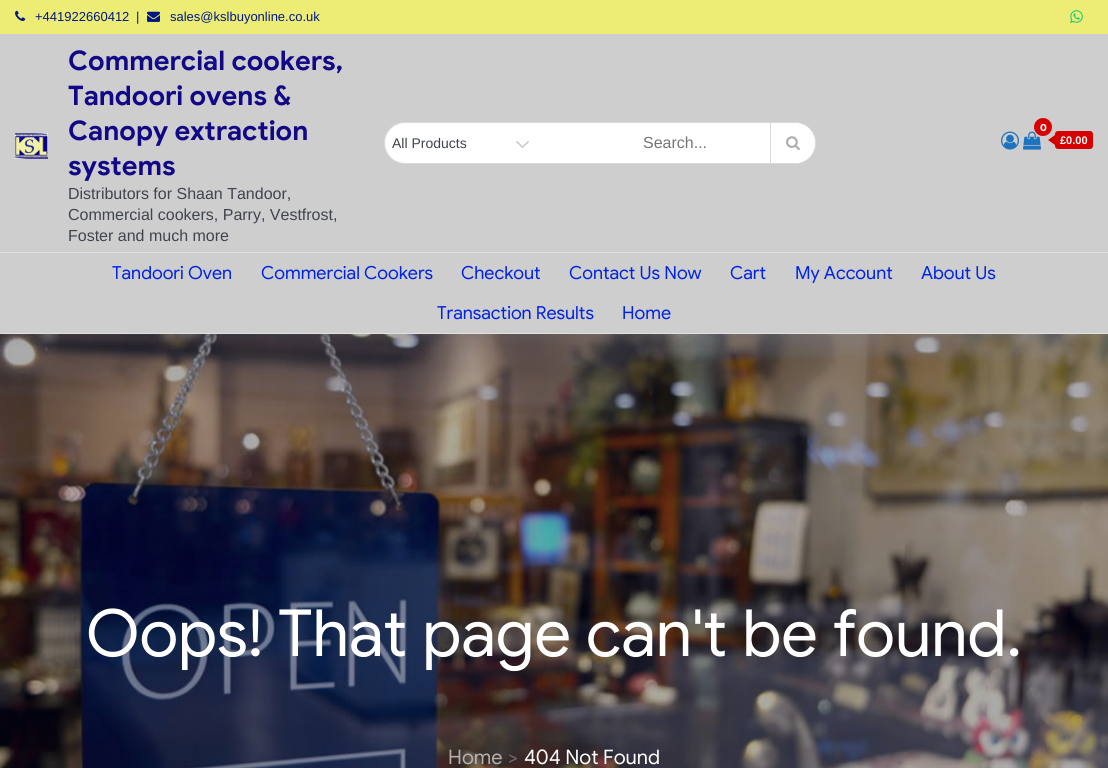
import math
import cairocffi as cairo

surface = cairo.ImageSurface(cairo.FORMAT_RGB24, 1108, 768)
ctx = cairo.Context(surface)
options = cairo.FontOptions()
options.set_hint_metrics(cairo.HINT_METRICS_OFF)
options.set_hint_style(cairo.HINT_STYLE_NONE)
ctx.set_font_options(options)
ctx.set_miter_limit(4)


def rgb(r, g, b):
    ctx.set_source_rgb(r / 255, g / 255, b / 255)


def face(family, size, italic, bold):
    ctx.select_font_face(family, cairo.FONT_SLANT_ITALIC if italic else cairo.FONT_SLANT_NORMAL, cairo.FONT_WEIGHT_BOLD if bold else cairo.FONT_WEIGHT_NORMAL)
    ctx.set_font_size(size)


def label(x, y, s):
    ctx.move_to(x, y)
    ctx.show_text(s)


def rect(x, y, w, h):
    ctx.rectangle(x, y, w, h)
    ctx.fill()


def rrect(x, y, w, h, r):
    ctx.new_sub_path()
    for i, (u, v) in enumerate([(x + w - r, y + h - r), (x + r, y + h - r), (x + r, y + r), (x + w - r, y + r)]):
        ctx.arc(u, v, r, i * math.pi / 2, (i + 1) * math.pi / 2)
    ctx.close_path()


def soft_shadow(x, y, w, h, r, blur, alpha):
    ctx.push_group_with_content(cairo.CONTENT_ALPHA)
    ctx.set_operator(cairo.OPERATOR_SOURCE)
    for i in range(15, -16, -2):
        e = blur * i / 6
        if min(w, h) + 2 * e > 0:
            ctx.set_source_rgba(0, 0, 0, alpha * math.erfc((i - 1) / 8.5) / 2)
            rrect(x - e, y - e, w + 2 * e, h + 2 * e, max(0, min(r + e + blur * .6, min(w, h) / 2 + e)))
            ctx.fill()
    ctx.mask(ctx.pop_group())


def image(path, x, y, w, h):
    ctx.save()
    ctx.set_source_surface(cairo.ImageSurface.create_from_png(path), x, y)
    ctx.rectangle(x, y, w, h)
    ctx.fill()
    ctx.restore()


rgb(255, 255, 255)
ctx.paint()
image('image8.png', 0, 334, 1108, 434)
rgb(130, 130, 130)
soft_shadow(3, 12, 1102, 328, 0, 4, 0.18)
rgb(206, 206, 206)
rect(0, 34, 1108, 299)
rgb(237, 237, 118)
rect(0, 0, 1108, 34)
image('image0.png', 15, 10, 11, 11)
face('Liberation Sans', 13, 0, 0)
rgb(1, 23, 132)
label(35, 21, '+441922660412')
label(136, 21, '|')
image('image1.png', 147, 11, 13, 11)
label(170, 21, 'sales@kslbuyonline.co.uk')
image('image2.png', 1070, 10, 13, 13)
image('image3.png', 15, 133, 33, 26)
face('Google Sans', 27, 0, 1)
rgb(18, 8, 135)
label(68, 70, 'Commercial cookers,')
label(68, 105, 'Tandoori ovens &')
label(68, 140, 'Canopy extraction')
label(68, 175, 'systems')
face('Liberation Sans', 16, 0, 0)
rgb(63, 68, 77)
label(68, 199, 'Distributors for Shaan Tandoor,')
label(68, 220, 'Commercial cookers, Parry, Vestfrost,')
label(68, 241, 'Foster and much more')
rgb(255, 255, 255)
rrect(384.5, 122.5, 431, 41, 20.5)
ctx.fill_preserve()
rgb(217, 217, 217)
ctx.set_line_width(1)
ctx.stroke()
image('image4.png', 516, 141, 13, 7)
face('Liberation Sans', 14, 0, 0)
rgb(63, 68, 77)
label(392, 148, 'All Products')
rgb(255, 255, 255)
ctx.new_path()
ctx.move_to(536, 123)
ctx.line_to(795, 123)
ctx.curve_to(806, 123, 815, 132, 815, 143)
ctx.curve_to(815, 154, 806, 163, 795, 163)
ctx.line_to(536, 163)
ctx.close_path()
ctx.fill()
face('Liberation Sans', 16, 0, 0)
rgb(117, 117, 117)
label(643, 148, 'Search...')
rgb(217, 217, 217)
rect(770, 123, 1, 40)
image('image5.png', 786, 136, 14, 15)
image('image6.png', 1001, 131, 18, 19)
image('image7.png', 1023, 131, 18, 19)
rgb(214, 2, 2)
ctx.arc(1043, 127, 9, 0, 2 * math.pi)
ctx.fill()
face('Montserrat', 10, 0, 1)
rgb(255, 255, 255)
label(1040, 131, '0')
rgb(214, 2, 2)
rrect(1055, 131, 38, 18, 3)
ctx.fill()
ctx.new_path()
ctx.move_to(1055, 135)
ctx.line_to(1055, 145)
ctx.line_to(1048, 140)
ctx.close_path()
ctx.fill()
face('Liberation Sans', 11, 0, 1)
rgb(255, 255, 255)
label(1060, 144, '£0.00')
rgb(225, 225, 225)
rect(0, 252, 1108, 1)
rect(0, 333, 1108, 1)
face('Google Sans', 18, 0, 0)
rgb(0, 34, 229)
label(112, 279, 'Tandoori Oven')
label(261, 279, 'Commercial Cookers')
label(461, 279, 'Checkout')
label(569, 279, 'Contact Us Now')
label(730, 279, 'Cart')
label(795, 279, 'My Account')
label(921, 279, 'About Us')
label(437, 319, 'Transaction Results')
label(622, 319, 'Home')
face('Google Sans', 65, 0, 0)
rgb(255, 255, 255)
label(86, 656, 'Oops! That page can\'t be found.')
face('Google Sans', 20, 0, 0)
rgb(180, 176, 173)
label(448, 764, 'Home')
rgb(115, 105, 106)
label(508, 764, '>')
rgb(255, 255, 255)
label(524, 764, '404 Not Found')
surface.write_to_png('render.png')
